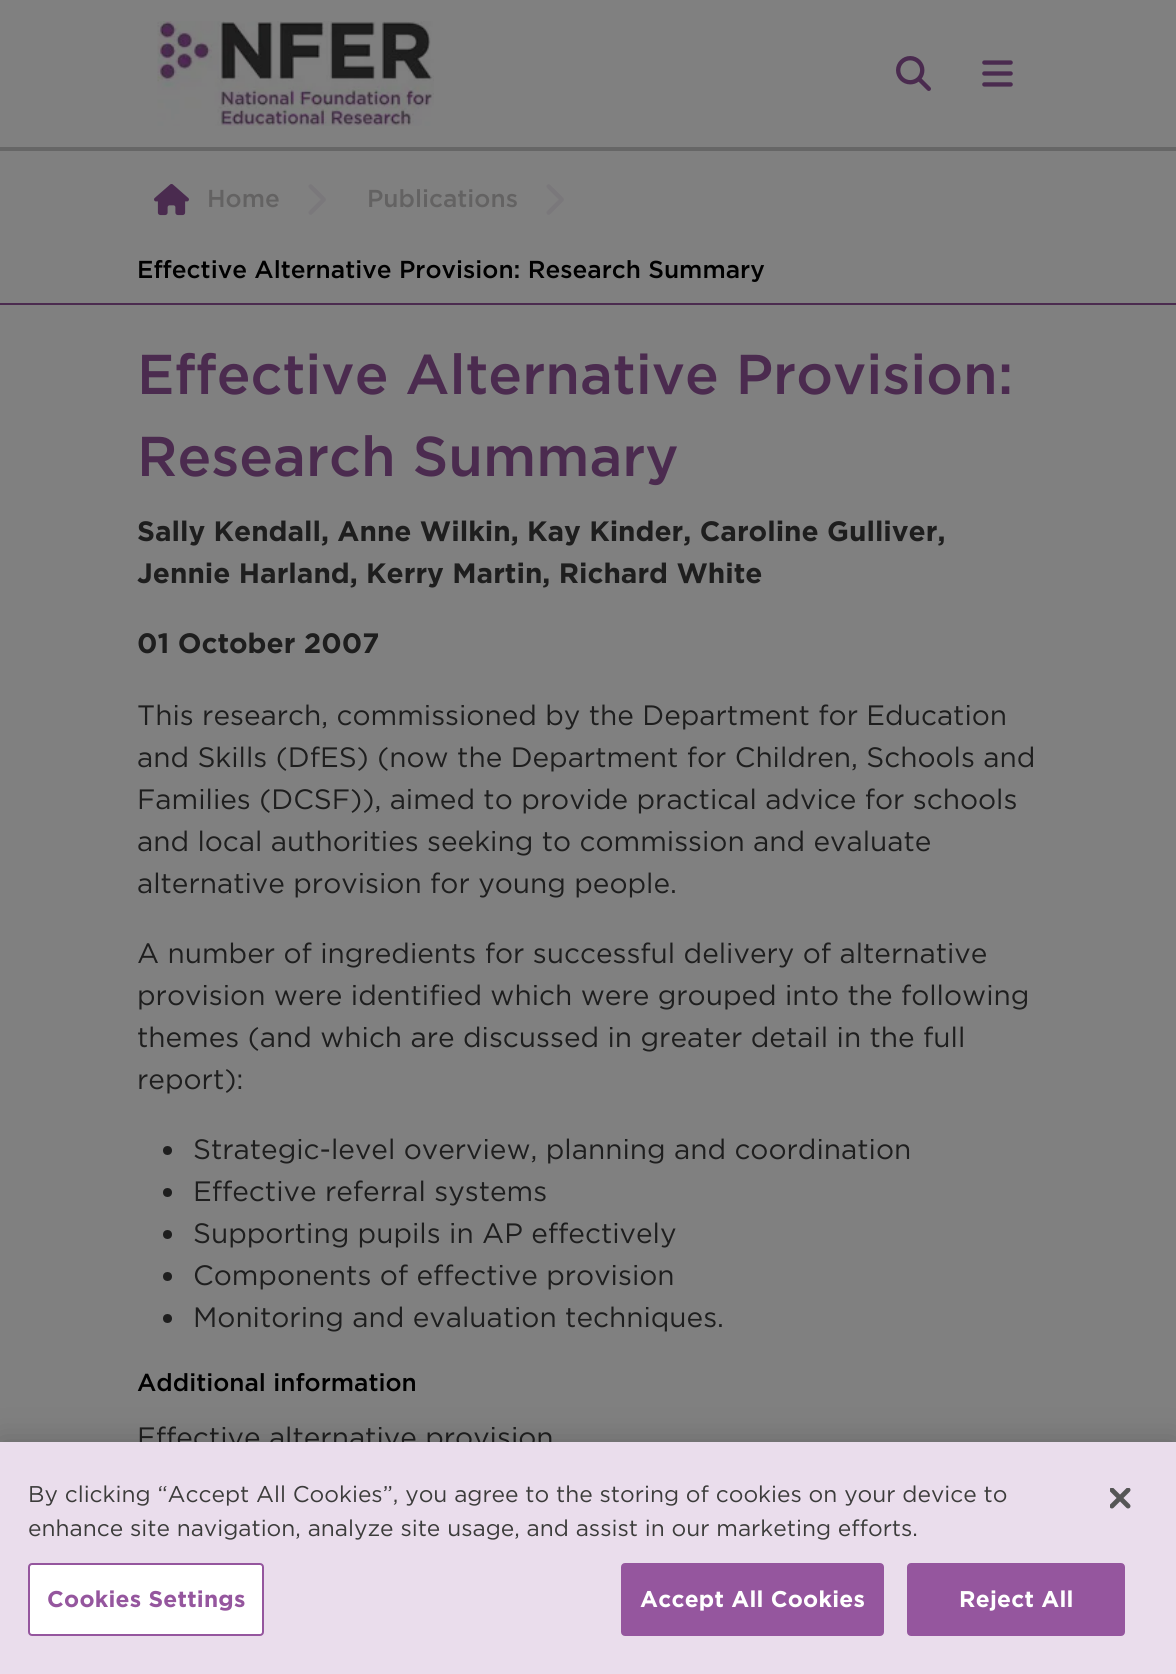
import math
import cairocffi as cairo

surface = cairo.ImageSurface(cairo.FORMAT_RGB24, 1176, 1674)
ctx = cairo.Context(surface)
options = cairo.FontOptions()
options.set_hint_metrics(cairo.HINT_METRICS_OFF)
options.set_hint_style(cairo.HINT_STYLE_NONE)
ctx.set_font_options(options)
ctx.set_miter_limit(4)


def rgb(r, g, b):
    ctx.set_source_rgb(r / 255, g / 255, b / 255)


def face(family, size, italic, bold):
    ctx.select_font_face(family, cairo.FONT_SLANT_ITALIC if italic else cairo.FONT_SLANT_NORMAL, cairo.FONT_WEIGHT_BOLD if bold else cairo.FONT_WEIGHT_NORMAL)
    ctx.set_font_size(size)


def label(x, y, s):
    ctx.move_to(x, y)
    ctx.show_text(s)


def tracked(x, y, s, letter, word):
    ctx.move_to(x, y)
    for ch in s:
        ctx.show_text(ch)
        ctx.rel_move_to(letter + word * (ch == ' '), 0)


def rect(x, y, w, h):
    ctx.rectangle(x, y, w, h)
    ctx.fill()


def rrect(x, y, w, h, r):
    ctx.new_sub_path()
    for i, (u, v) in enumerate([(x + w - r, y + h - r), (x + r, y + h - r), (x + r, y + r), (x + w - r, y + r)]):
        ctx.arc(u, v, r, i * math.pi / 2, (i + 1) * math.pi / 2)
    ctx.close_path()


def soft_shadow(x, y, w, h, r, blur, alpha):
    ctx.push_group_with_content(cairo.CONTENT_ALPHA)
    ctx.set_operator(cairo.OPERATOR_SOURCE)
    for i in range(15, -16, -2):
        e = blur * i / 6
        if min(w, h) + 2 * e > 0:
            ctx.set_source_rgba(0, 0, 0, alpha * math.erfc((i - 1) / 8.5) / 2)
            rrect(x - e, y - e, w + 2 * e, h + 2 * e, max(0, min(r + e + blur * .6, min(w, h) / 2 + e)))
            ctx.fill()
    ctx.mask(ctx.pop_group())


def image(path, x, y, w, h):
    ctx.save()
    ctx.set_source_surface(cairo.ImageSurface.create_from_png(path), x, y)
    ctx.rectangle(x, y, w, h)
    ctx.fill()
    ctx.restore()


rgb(128, 128, 128)
ctx.paint()
image('image0.png', 157, 21, 277, 105)
image('image1.png', 896, 56, 35, 35)
image('image2.png', 982, 60, 31, 27)
rgb(102, 102, 102)
rect(0, 147, 1176, 4)
rgb(75, 43, 79)
rect(0, 303, 1176, 2)
image('image3.png', 154, 184, 35, 32)
face('Gotham Medium', 24.5, 0, 0)
rgb(99, 98, 98)
label(207, 207, 'Home')
image('image4.png', 308, 184, 18, 31)
label(367, 207, 'Publications')
image('image4.png', 546, 184, 18, 31)
rgb(0, 0, 0)
label(137, 278, 'Effective Alternative Provision: Research Summary')
face('Gotham Medium', 56, 0, 0)
rgb(75, 43, 79)
label(137, 394, 'Effective Alternative Provision:')
label(137, 476, 'Research Summary')
face('Gotham', 28, 0, 1)
rgb(30, 30, 30)
label(137, 541, 'Sally Kendall, Anne Wilkin, Kay Kinder, Caroline Gulliver,')
label(137, 583, 'Jennie Harland, Kerry Martin, Richard White')
label(137, 653, '01 October 2007')
face('Gotham', 28, 0, 0)
label(137, 725, 'This research, commissioned by the Department for Education')
label(137, 767, 'and Skills (DfES) (now the Department for Children, Schools and')
label(137, 809, 'Families (DCSF)), aimed to provide practical advice for schools')
label(137, 851, 'and local authorities seeking to commission and evaluate')
label(137, 893, 'alternative provision for young people.')
label(137, 963, 'A number of ingredients for successful delivery of alternative')
label(137, 1005, 'provision were identified which were grouped into the following')
label(137, 1047, 'themes (and which are discussed in greater detail in the full')
label(137, 1089, 'report):')
ctx.new_path()
ctx.arc(167.5, 1150.5, 4.5, 0, 2 * math.pi)
ctx.fill()
label(193, 1159, 'Strategic-level overview, planning and coordination')
ctx.new_path()
ctx.arc(167.5, 1192.5, 4.5, 0, 2 * math.pi)
ctx.fill()
label(193, 1201, 'Effective referral systems')
ctx.new_path()
ctx.arc(167.5, 1234.5, 4.5, 0, 2 * math.pi)
ctx.fill()
label(193, 1243, 'Supporting pupils in AP effectively')
ctx.new_path()
ctx.arc(167.5, 1276.5, 4.5, 0, 2 * math.pi)
ctx.fill()
label(193, 1285, 'Components of effective provision')
ctx.new_path()
ctx.arc(167.5, 1318.5, 4.5, 0, 2 * math.pi)
ctx.fill()
label(193, 1327, 'Monitoring and evaluation techniques.')
face('Gotham Medium', 24.5, 0, 0)
rgb(0, 0, 0)
label(137, 1391, 'Additional information')
face('Gotham', 28, 0, 0)
rgb(30, 30, 30)
label(137, 1447, 'Effective alternative provision')
rgb(0, 0, 0)
soft_shadow(0, 1442, 1176, 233, 0, 16, 0.2)
rgb(234, 221, 236)
rect(0, 1442, 1176, 232)
face('Gotham', 22.75, 0, 0)
rgb(60, 60, 59)
label(28, 1502, 'By clicking “Accept All Cookies”, you agree to the storing of cookies on your device to')
label(28, 1536, 'enhance site navigation, analyze site usage, and assist in our marketing efforts.')
rgb(255, 255, 255)
rrect(29, 1564, 234, 71, 3)
ctx.fill_preserve()
rgb(149, 86, 158)
ctx.stroke()
face('Gotham', 22.75, 0, 1)
tracked(47, 1607, 'Cookies Settings', 0.25, 0)
rrect(622, 1564, 261, 71, 3)
ctx.fill_preserve()
ctx.stroke()
rgb(255, 255, 255)
tracked(640, 1607, 'Accept All Cookies', 0.25, 0)
rgb(149, 86, 158)
rrect(908, 1564, 216, 71, 3)
ctx.fill_preserve()
ctx.stroke()
rgb(255, 255, 255)
tracked(959, 1607, 'Reject All', 0.25, 0)
image('image5.png', 1110, 1488, 21, 21)
surface.write_to_png('render.png')
